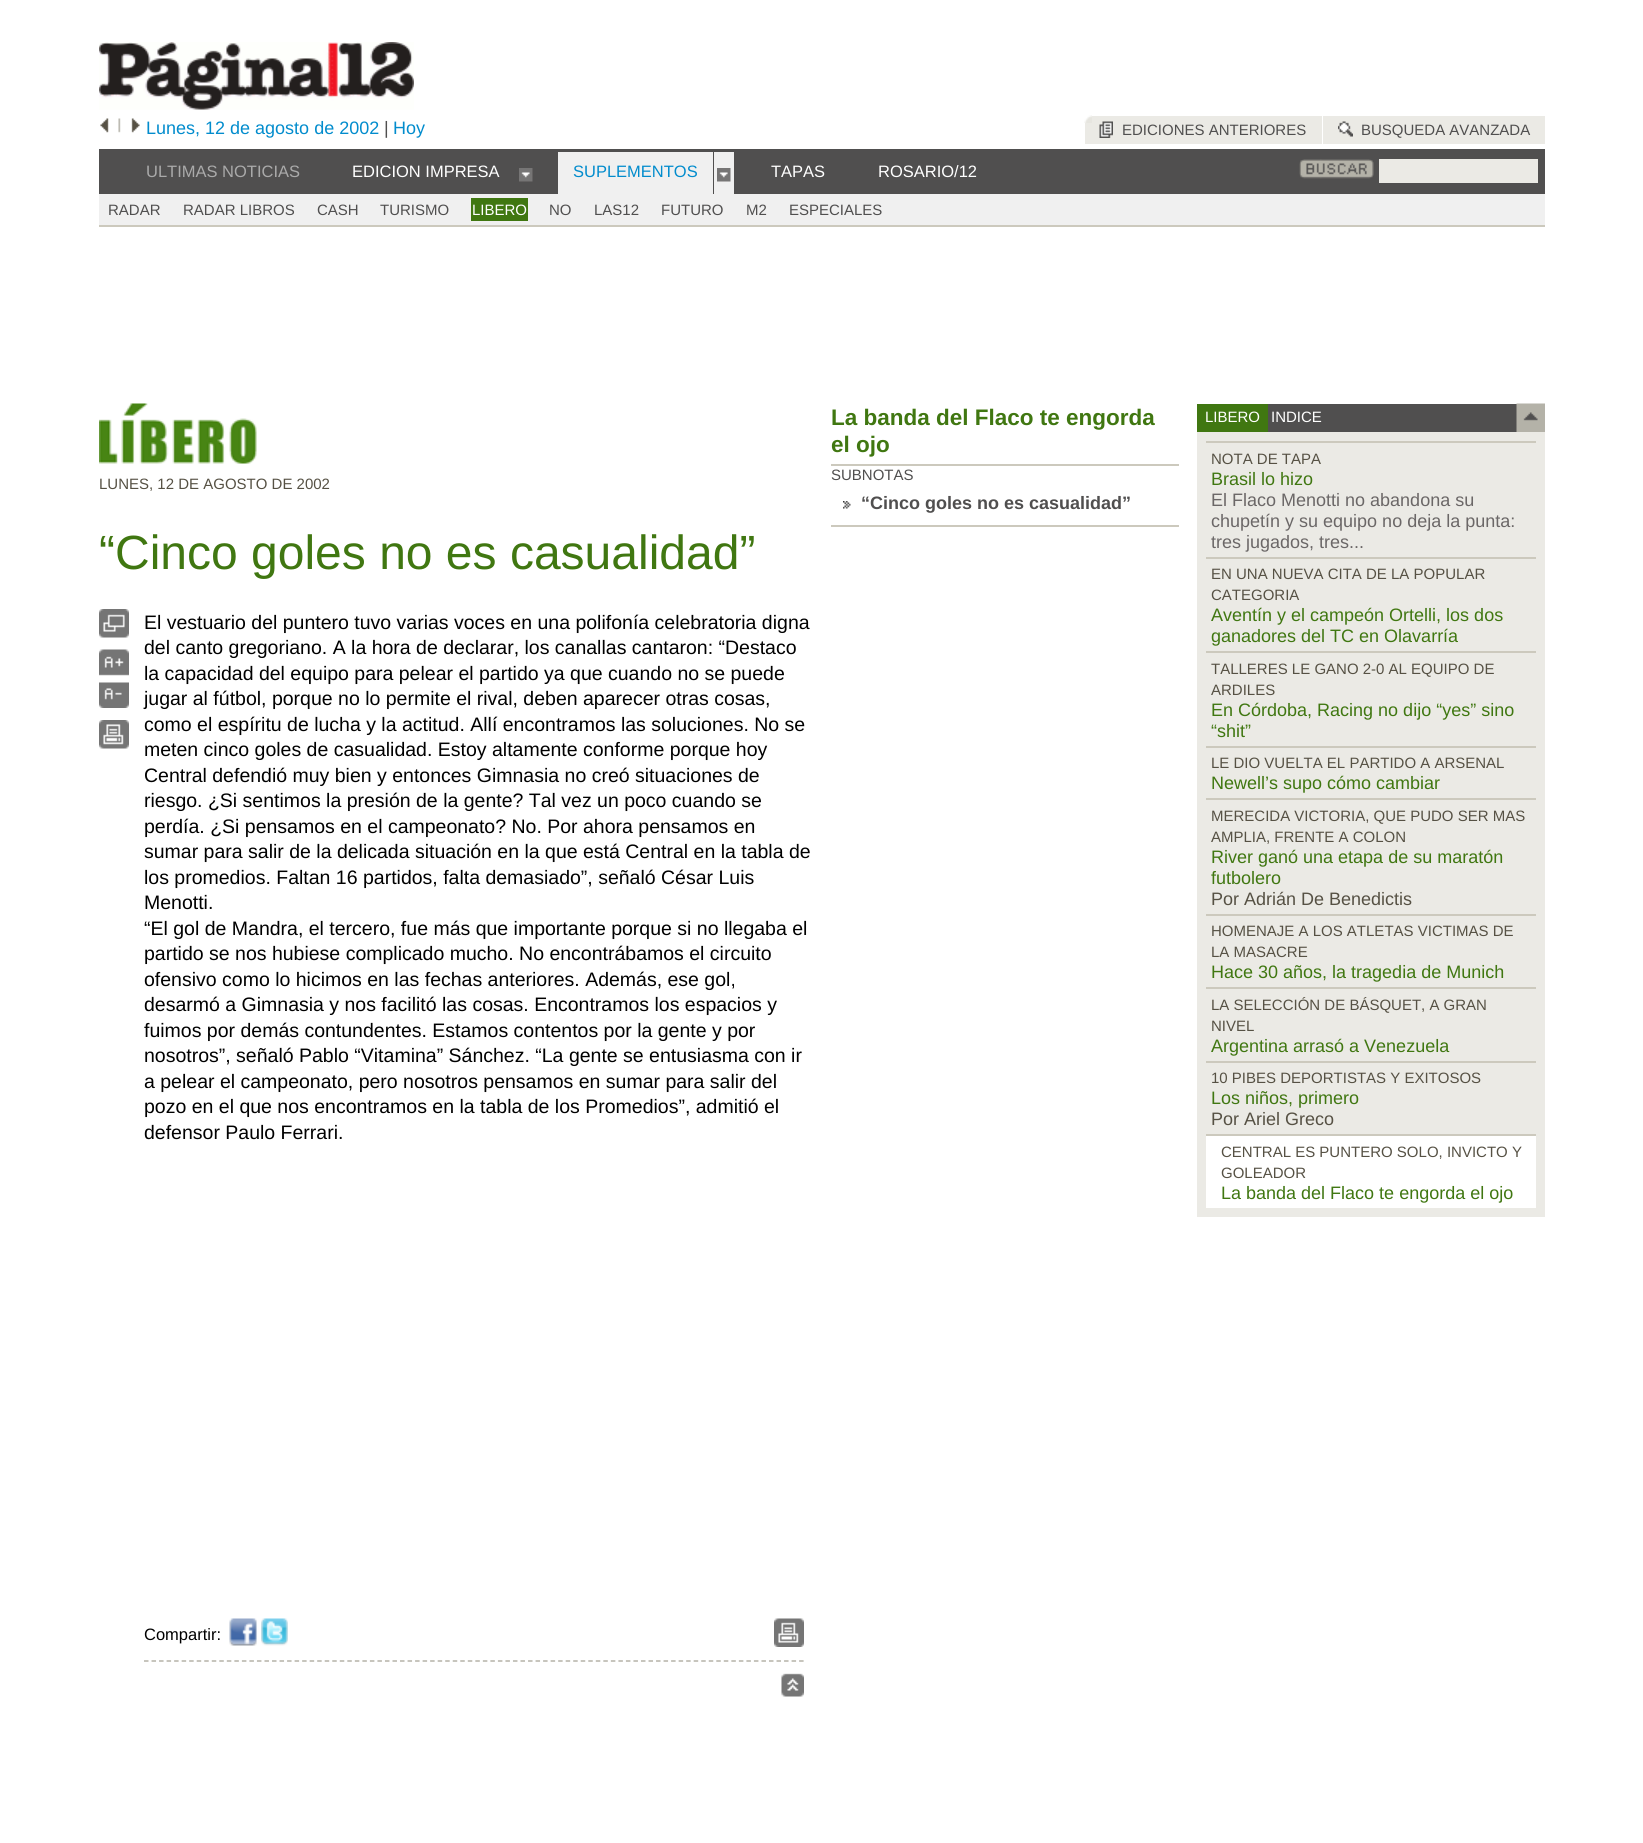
import math
import cairocffi as cairo

surface = cairo.ImageSurface(cairo.FORMAT_RGB24, 1643, 1843)
ctx = cairo.Context(surface)
options = cairo.FontOptions()
options.set_hint_metrics(cairo.HINT_METRICS_OFF)
options.set_hint_style(cairo.HINT_STYLE_NONE)
ctx.set_font_options(options)
ctx.set_miter_limit(4)


def rgb(r, g, b):
    ctx.set_source_rgb(r / 255, g / 255, b / 255)


def face(family, size, italic, bold):
    ctx.select_font_face(family, cairo.FONT_SLANT_ITALIC if italic else cairo.FONT_SLANT_NORMAL, cairo.FONT_WEIGHT_BOLD if bold else cairo.FONT_WEIGHT_NORMAL)
    ctx.set_font_size(size)


def label(x, y, s):
    ctx.move_to(x, y)
    ctx.show_text(s)


def rect(x, y, w, h):
    ctx.rectangle(x, y, w, h)
    ctx.fill()


def image(path, x, y, w, h):
    ctx.save()
    ctx.set_source_surface(cairo.ImageSurface.create_from_png(path), x, y)
    ctx.rectangle(x, y, w, h)
    ctx.fill()
    ctx.restore()


rgb(255, 255, 255)
ctx.paint()
image('image0.png', 99, 42, 315, 68)
image('image1.png', 100, 118, 9, 15)
image('image2.png', 118, 118, 3, 15)
image('image3.png', 131, 118, 9, 15)
face('Liberation Sans', 18, 0, 0)
rgb(2, 140, 205)
label(146, 134, 'Lunes, 12 de agosto de 2002')
rgb(80, 79, 79)
label(384, 134, '|')
rgb(2, 140, 205)
label(393, 134, 'Hoy')
rgb(235, 234, 229)
rect(1085, 116, 237, 28)
image('image4.png', 1084, 115, 8, 8)
image('image5.png', 1099, 121, 14, 17)
face('Liberation Sans', 15, 0, 0)
rgb(80, 79, 79)
label(1122, 135, 'EDICIONES ANTERIORES')
rgb(235, 234, 229)
rect(1323, 116, 222, 28)
image('image6.png', 1338, 121, 15, 16)
rgb(80, 79, 79)
label(1361, 135, 'BUSQUEDA AVANZADA')
rect(99, 149, 1446, 45)
face('Liberation Sans', 16.5, 0, 0)
rgb(170, 170, 170)
label(146, 177, 'ULTIMAS NOTICIAS')
rgb(255, 255, 255)
label(352, 177, 'EDICION IMPRESA')
image('image7.png', 519, 168, 14, 14)
rgb(240, 240, 240)
rect(558, 152, 155, 42)
rgb(2, 140, 205)
label(573, 177, 'SUPLEMENTOS')
rgb(240, 240, 240)
rect(714, 152, 20, 42)
image('image8.png', 717, 168, 14, 14)
rgb(255, 255, 255)
label(771, 177, 'TAPAS')
label(878, 177, 'ROSARIO/12')
image('image9.png', 1299, 159, 75, 20)
rgb(235, 234, 229)
rect(1379, 159, 159, 24)
rgb(240, 240, 240)
rect(99, 194, 1446, 31)
rgb(204, 201, 189)
rect(99, 225, 1446, 2)
face('Liberation Sans', 15, 0, 0)
rgb(80, 79, 79)
label(108, 215, 'RADAR')
label(183, 215, 'RADAR LIBROS')
label(317, 215, 'CASH')
label(380, 215, 'TURISMO')
rgb(64, 119, 17)
rect(471, 198, 57, 23)
rgb(255, 255, 255)
label(472, 215, 'LIBERO')
rgb(80, 79, 79)
label(549, 215, 'NO')
label(594, 215, 'LAS12')
label(661, 215, 'FUTURO')
label(746, 215, 'M2')
label(789, 215, 'ESPECIALES')
face('Liberation Sans', 22.5, 0, 1)
rgb(64, 119, 17)
label(831, 425, 'La banda del Flaco te engorda')
label(831, 452, 'el ojo')
rgb(204, 201, 189)
rect(831, 464, 348, 2)
rect(831, 525, 348, 2)
face('Liberation Sans', 15, 0, 0)
rgb(80, 79, 79)
label(831, 480, 'SUBNOTAS')
image('image10.png', 843, 501, 8, 8)
face('Liberation Sans', 18, 0, 1)
label(861, 509, '“Cinco goles no es casualidad”')
image('image11.png', 99, 403, 158, 61)
face('Liberation Sans', 15, 0, 0)
rgb(86, 81, 68)
label(99, 489, 'LUNES, 12 DE AGOSTO DE 2002')
face('Liberation Sans', 48, 0, 0)
rgb(64, 119, 17)
label(99, 569, '“Cinco goles no es casualidad”')
image('image12.png', 99, 609, 30, 29)
image('image13.png', 99, 649, 30, 27)
image('image14.png', 99, 682, 30, 26)
image('image15.png', 99, 720, 30, 29)
face('Liberation Sans', 19.5, 0, 0)
rgb(0, 0, 0)
label(144, 629, 'El vestuario del puntero tuvo varias voces en una polifonía celebratoria digna')
label(144, 654, 'del canto gregoriano. A la hora de declarar, los canallas cantaron: “Destaco')
label(144, 680, 'la capacidad del equipo para pelear el partido ya que cuando no se puede')
label(144, 705, 'jugar al fútbol, porque no lo permite el rival, deben aparecer otras cosas,')
label(144, 731, 'como el espíritu de lucha y la actitud. Allí encontramos las soluciones. No se')
label(144, 756, 'meten cinco goles de casualidad. Estoy altamente conforme porque hoy')
label(144, 782, 'Central defendió muy bien y entonces Gimnasia no creó situaciones de')
label(144, 807, 'riesgo. ¿Si sentimos la presión de la gente? Tal vez un poco cuando se')
label(144, 833, 'perdía. ¿Si pensamos en el campeonato? No. Por ahora pensamos en')
label(144, 858, 'sumar para salir de la delicada situación en la que está Central en la tabla de')
label(144, 884, 'los promedios. Faltan 16 partidos, falta demasiado”, señaló César Luis')
label(144, 909, 'Menotti.')
label(144, 935, '“El gol de Mandra, el tercero, fue más que importante porque si no llegaba el')
label(144, 960, 'partido se nos hubiese complicado mucho. No encontrábamos el circuito')
label(144, 986, 'ofensivo como lo hicimos en las fechas anteriores. Además, ese gol,')
label(144, 1011, 'desarmó a Gimnasia y nos facilitó las cosas. Encontramos los espacios y')
label(144, 1037, 'fuimos por demás contundentes. Estamos contentos por la gente y por')
label(144, 1062, 'nosotros”, señaló Pablo “Vitamina” Sánchez. “La gente se entusiasma con ir')
label(144, 1088, 'a pelear el campeonato, pero nosotros pensamos en sumar para salir del')
label(144, 1113, 'pozo en el que nos encontramos en la tabla de los Promedios”, admitió el')
label(144, 1139, 'defensor Paulo Ferrari.')
ctx.new_path()
ctx.move_to(144, 1661)
ctx.line_to(804, 1661)
rgb(180, 178, 168)
ctx.set_line_width(1.5)
ctx.set_dash([4.5, 3.03])
ctx.stroke()
face('Liberation Sans', 16.5, 0, 0)
rgb(0, 0, 0)
label(144, 1640, 'Compartir:')
image('image16.png', 229, 1618, 28, 28)
image('image17.png', 261, 1618, 27, 28)
image('image18.png', 774, 1618, 30, 29)
image('image19.png', 781, 1673, 23, 24)
rgb(64, 119, 17)
rect(1197, 404, 71, 28)
face('Liberation Sans', 15, 0, 0)
rgb(255, 255, 255)
label(1205, 422, 'LIBERO')
rgb(80, 79, 79)
rect(1268, 404, 249, 28)
image('image20.png', 1516, 403, 29, 29)
rgb(255, 255, 255)
label(1271, 422, 'INDICE')
rgb(235, 234, 229)
rect(1197, 432, 348, 785)
rgb(204, 201, 189)
rect(1206, 441, 330, 2)
rgb(86, 81, 68)
label(1211, 464, 'NOTA DE TAPA')
face('Liberation Sans', 18, 0, 0)
rgb(64, 119, 17)
label(1211, 485, 'Brasil lo hizo')
rgb(107, 103, 103)
label(1211, 506, 'El Flaco Menotti no abandona su')
label(1211, 527, 'chupetín y su equipo no deja la punta:')
label(1211, 548, 'tres jugados, tres...')
rgb(204, 201, 189)
rect(1206, 557, 330, 2)
face('Liberation Sans', 15, 0, 0)
rgb(86, 81, 68)
label(1211, 579, 'EN UNA NUEVA CITA DE LA POPULAR')
label(1211, 600, 'CATEGORIA')
face('Liberation Sans', 18, 0, 0)
rgb(64, 119, 17)
label(1211, 621, 'Aventín y el campeón Ortelli, los dos')
label(1211, 642, 'ganadores del TC en Olavarría')
rgb(204, 201, 189)
rect(1206, 651, 330, 2)
face('Liberation Sans', 15, 0, 0)
rgb(86, 81, 68)
label(1211, 674, 'TALLERES LE GANO 2-0 AL EQUIPO DE')
label(1211, 695, 'ARDILES')
face('Liberation Sans', 18, 0, 0)
rgb(64, 119, 17)
label(1211, 716, 'En Córdoba, Racing no dijo “yes” sino')
label(1211, 737, '“shit”')
rgb(204, 201, 189)
rect(1206, 746, 330, 2)
face('Liberation Sans', 15, 0, 0)
rgb(86, 81, 68)
label(1211, 768, 'LE DIO VUELTA EL PARTIDO A ARSENAL')
face('Liberation Sans', 18, 0, 0)
rgb(64, 119, 17)
label(1211, 789, 'Newell’s supo cómo cambiar')
rgb(204, 201, 189)
rect(1206, 798, 330, 2)
face('Liberation Sans', 15, 0, 0)
rgb(86, 81, 68)
label(1211, 821, 'MERECIDA VICTORIA, QUE PUDO SER MAS')
label(1211, 842, 'AMPLIA, FRENTE A COLON')
face('Liberation Sans', 18, 0, 0)
rgb(64, 119, 17)
label(1211, 863, 'River ganó una etapa de su maratón')
label(1211, 884, 'futbolero')
rgb(86, 81, 68)
label(1211, 905, 'Por Adrián De Benedictis')
rgb(204, 201, 189)
rect(1206, 914, 330, 2)
face('Liberation Sans', 15, 0, 0)
rgb(86, 81, 68)
label(1211, 936, 'HOMENAJE A LOS ATLETAS VICTIMAS DE')
label(1211, 957, 'LA MASACRE')
face('Liberation Sans', 18, 0, 0)
rgb(64, 119, 17)
label(1211, 978, 'Hace 30 años, la tragedia de Munich')
rgb(204, 201, 189)
rect(1206, 987, 330, 2)
face('Liberation Sans', 15, 0, 0)
rgb(86, 81, 68)
label(1211, 1010, 'LA SELECCIÓN DE BÁSQUET, A GRAN')
label(1211, 1031, 'NIVEL')
face('Liberation Sans', 18, 0, 0)
rgb(64, 119, 17)
label(1211, 1052, 'Argentina arrasó a Venezuela')
rgb(204, 201, 189)
rect(1206, 1061, 330, 2)
face('Liberation Sans', 15, 0, 0)
rgb(86, 81, 68)
label(1211, 1083, '10 PIBES DEPORTISTAS Y EXITOSOS')
face('Liberation Sans', 18, 0, 0)
rgb(64, 119, 17)
label(1211, 1104, 'Los niños, primero')
rgb(86, 81, 68)
label(1211, 1125, 'Por Ariel Greco')
rgb(255, 255, 255)
rect(1206, 1136, 330, 72)
rgb(204, 201, 189)
rect(1206, 1134, 330, 2)
face('Liberation Sans', 15, 0, 0)
rgb(86, 81, 68)
label(1221, 1157, 'CENTRAL ES PUNTERO SOLO, INVICTO Y')
label(1221, 1178, 'GOLEADOR')
face('Liberation Sans', 18, 0, 0)
rgb(64, 119, 17)
label(1221, 1199, 'La banda del Flaco te engorda el ojo')
surface.write_to_png('render.png')
